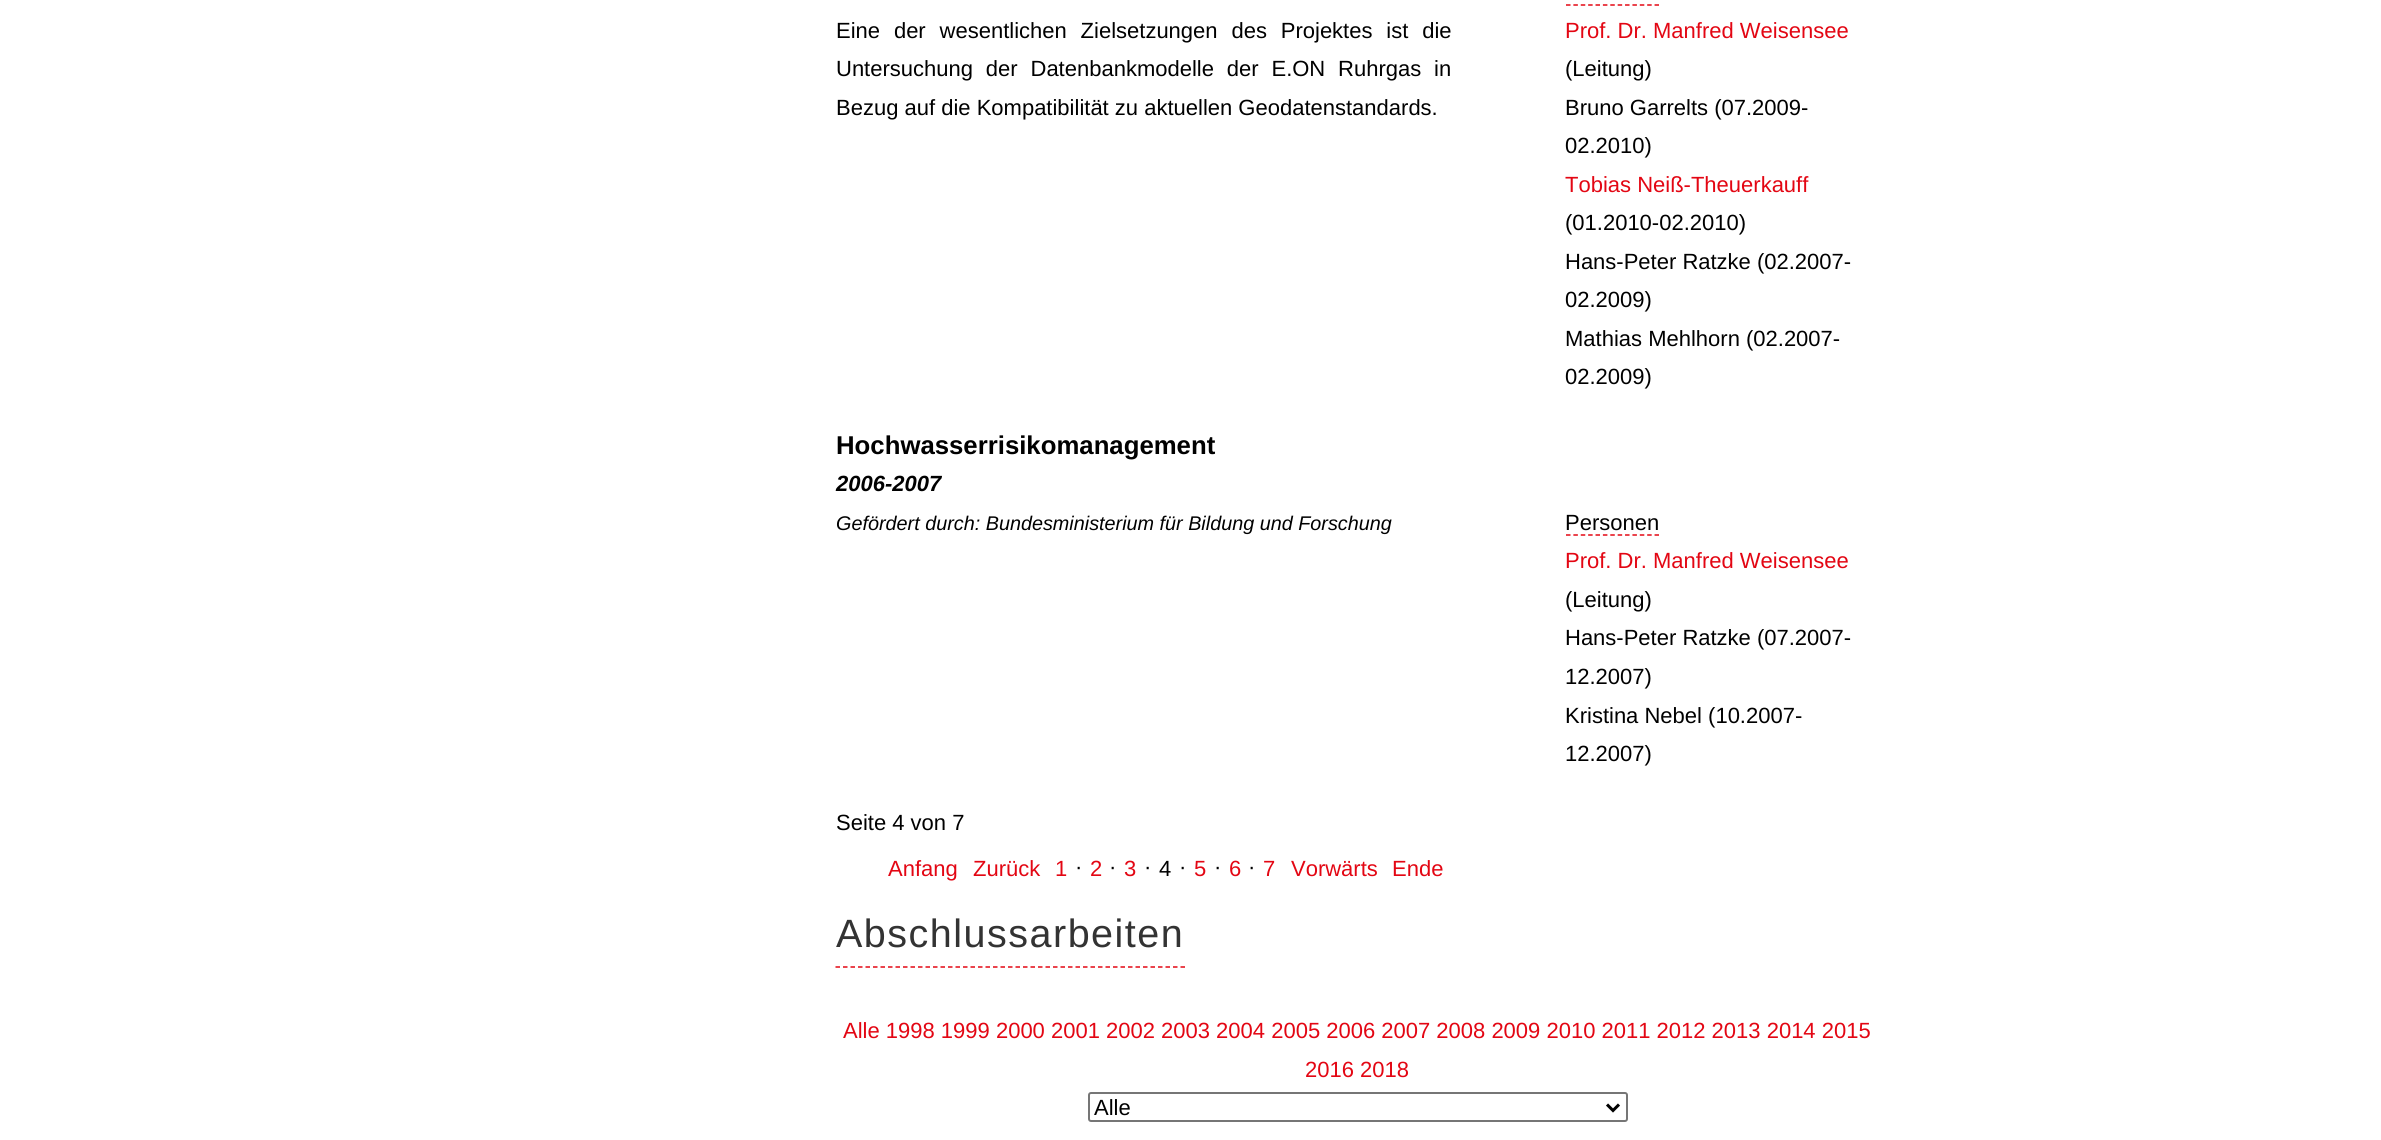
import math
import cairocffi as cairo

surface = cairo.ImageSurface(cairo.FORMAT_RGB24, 2381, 1140)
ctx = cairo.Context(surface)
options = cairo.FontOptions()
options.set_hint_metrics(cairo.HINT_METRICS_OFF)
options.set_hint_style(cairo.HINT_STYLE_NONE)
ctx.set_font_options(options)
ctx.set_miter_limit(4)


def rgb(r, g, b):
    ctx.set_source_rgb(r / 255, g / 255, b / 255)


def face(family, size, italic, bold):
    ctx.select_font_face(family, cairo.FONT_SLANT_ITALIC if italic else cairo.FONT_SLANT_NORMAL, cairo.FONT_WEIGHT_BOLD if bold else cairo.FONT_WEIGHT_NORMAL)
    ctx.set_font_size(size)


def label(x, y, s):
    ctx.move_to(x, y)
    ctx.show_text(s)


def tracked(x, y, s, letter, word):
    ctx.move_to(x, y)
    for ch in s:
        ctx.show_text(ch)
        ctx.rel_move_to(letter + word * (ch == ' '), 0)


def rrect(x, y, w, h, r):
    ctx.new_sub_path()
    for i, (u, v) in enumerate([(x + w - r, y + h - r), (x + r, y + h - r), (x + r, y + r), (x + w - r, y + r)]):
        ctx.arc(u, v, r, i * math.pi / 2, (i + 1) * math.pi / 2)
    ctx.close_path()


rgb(255, 255, 255)
ctx.paint()
face('Liberation Sans', 22, 0, 0)
rgb(0, 0, 0)
tracked(836, 38, 'Eine der wesentlichen Zielsetzungen des Projektes ist die', 0, 7.75)
tracked(836, 76, 'Untersuchung der Datenbankmodelle der E.ON Ruhrgas in', 0, 6.75)
label(836, 115, 'Bezug auf die Kompatibilität zu aktuellen Geodatenstandards.')
ctx.new_path()
ctx.move_to(1566, 5)
ctx.line_to(1659, 5)
rgb(227, 6, 19)
ctx.set_line_width(1.5)
ctx.set_dash([4.5, 2.88])
ctx.stroke()
label(1565, 38, 'Prof. Dr. Manfred Weisensee')
rgb(0, 0, 0)
label(1565, 76, '(Leitung)')
label(1565, 115, 'Bruno Garrelts (07.2009-')
label(1565, 153, '02.2010)')
rgb(227, 6, 19)
label(1565, 192, 'Tobias Neiß-Theuerkauff')
rgb(0, 0, 0)
label(1565, 230, '(01.2010-02.2010)')
label(1565, 269, 'Hans-Peter Ratzke (02.2007-')
label(1565, 307, '02.2009)')
label(1565, 346, 'Mathias Mehlhorn (02.2007-')
label(1565, 384, '02.2009)')
face('Liberation Sans', 25.75, 0, 1)
label(836, 454, 'Hochwasserrisikomanagement')
face('Liberation Sans', 22, 1, 1)
label(836, 491, '2006-2007')
face('Liberation Sans', 19.8, 1, 0)
label(836, 530, 'Gefördert durch: Bundesministerium für Bildung und Forschung')
face('Liberation Sans', 22, 0, 0)
label(1565, 530, 'Personen')
ctx.new_path()
ctx.move_to(1566, 535)
ctx.line_to(1659, 535)
rgb(227, 6, 19)
ctx.stroke()
label(1565, 568, 'Prof. Dr. Manfred Weisensee')
rgb(0, 0, 0)
label(1565, 607, '(Leitung)')
label(1565, 645, 'Hans-Peter Ratzke (07.2007-')
label(1565, 684, '12.2007)')
label(1565, 723, 'Kristina Nebel (10.2007-')
label(1565, 761, '12.2007)')
label(836, 830, 'Seite 4 von 7')
rgb(227, 6, 19)
label(888, 876, 'Anfang')
label(973, 876, 'Zurück')
label(1055, 876, '1')
rgb(0, 0, 0)
label(1075, 874, '·')
rgb(227, 6, 19)
label(1090, 876, '2')
rgb(0, 0, 0)
label(1109, 874, '·')
rgb(227, 6, 19)
label(1124, 876, '3')
rgb(0, 0, 0)
label(1144, 874, '·')
label(1159, 876, '4')
label(1179, 874, '·')
rgb(227, 6, 19)
label(1194, 876, '5')
rgb(0, 0, 0)
label(1214, 874, '·')
rgb(227, 6, 19)
label(1229, 876, '6')
rgb(0, 0, 0)
label(1248, 874, '·')
rgb(227, 6, 19)
label(1263, 876, '7')
label(1291, 876, 'Vorwärts')
label(1392, 876, 'Ende')
ctx.new_path()
ctx.move_to(835.5, 967)
ctx.line_to(1185, 967)
ctx.set_dash([4.5, 3])
ctx.stroke()
face('Liberation Sans', 39.5, 0, 0)
rgb(51, 51, 51)
tracked(836, 947, 'Abschlussarbeiten', 1.5, 0)
face('Liberation Sans', 22, 0, 0)
rgb(227, 6, 19)
label(843, 1038, 'Alle 1998 1999 2000 2001 2002 2003 2004 2005 2006 2007 2008 2009 2010 2011 2012 2013 2014 2015')
label(1305, 1077, '2016 2018')
rrect(1089, 1093, 538, 28, 2)
rgb(118, 118, 118)
ctx.set_line_width(2)
ctx.set_dash([])
ctx.stroke()
ctx.new_path()
ctx.move_to(1607, 1104.5)
ctx.line_to(1613, 1110.5)
ctx.line_to(1619, 1104.5)
rgb(0, 0, 0)
ctx.set_line_width(3)
ctx.stroke()
label(1094, 1115, 'Alle')
surface.write_to_png('render.png')
